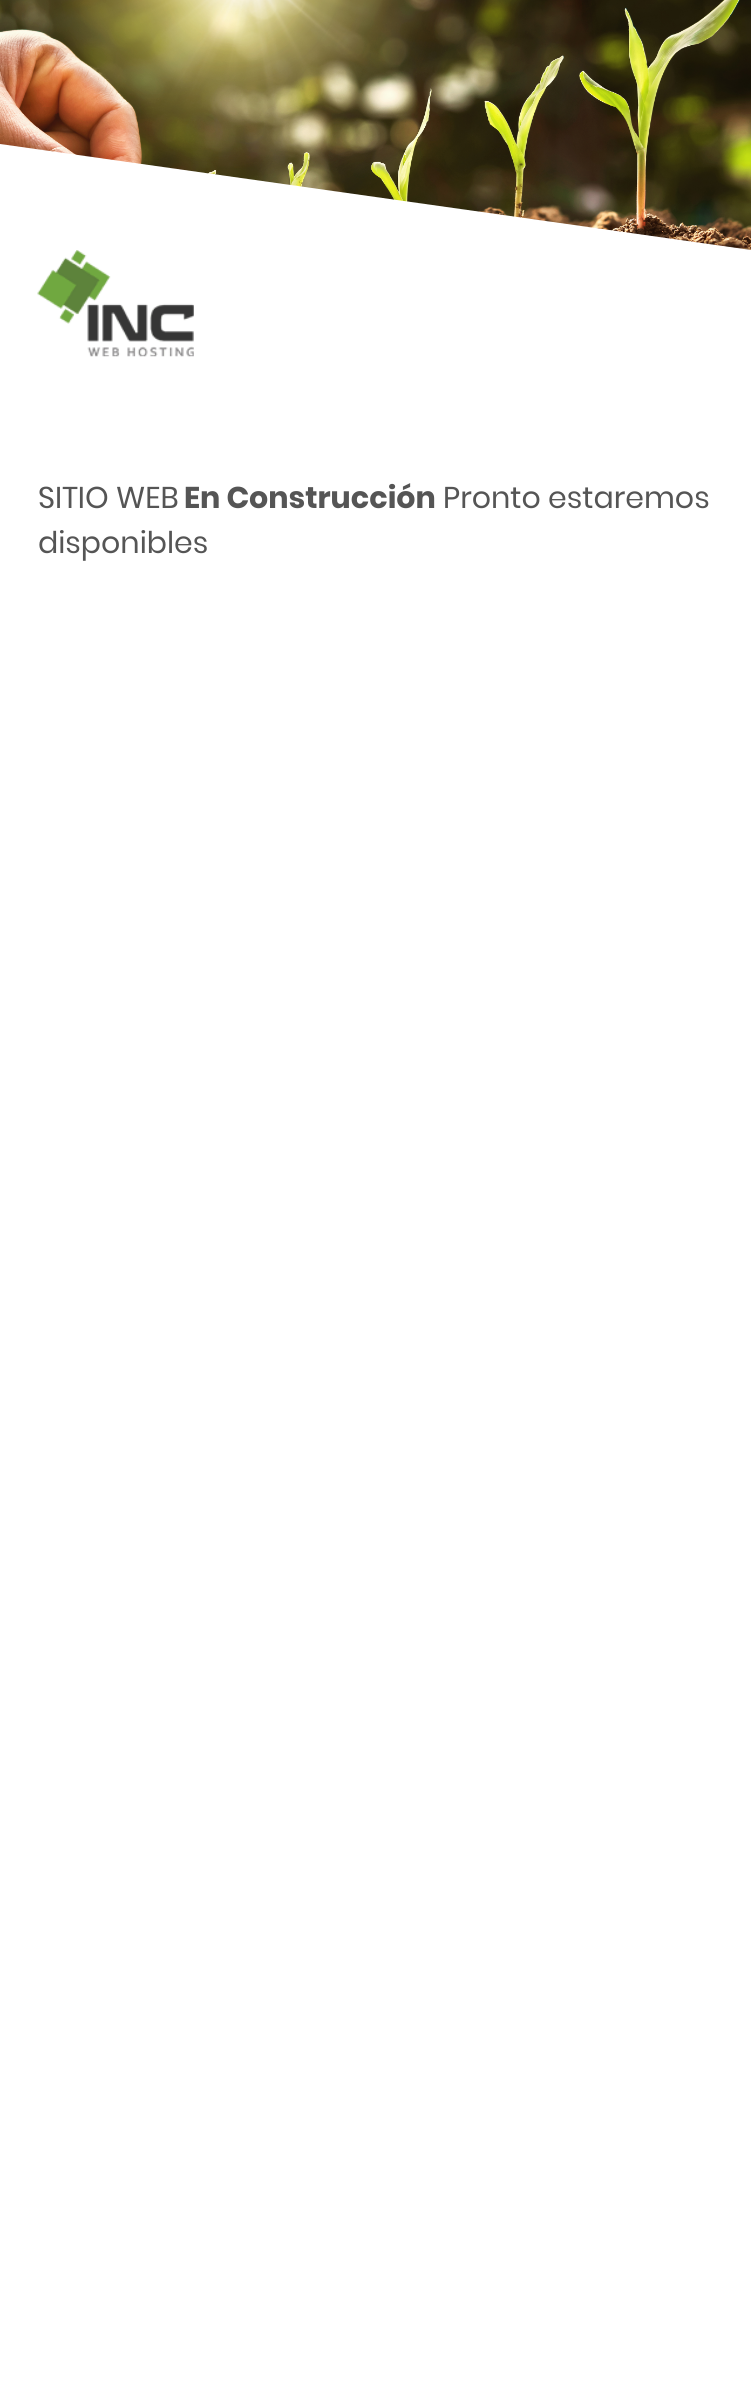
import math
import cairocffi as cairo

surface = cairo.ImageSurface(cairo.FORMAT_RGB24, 751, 2402)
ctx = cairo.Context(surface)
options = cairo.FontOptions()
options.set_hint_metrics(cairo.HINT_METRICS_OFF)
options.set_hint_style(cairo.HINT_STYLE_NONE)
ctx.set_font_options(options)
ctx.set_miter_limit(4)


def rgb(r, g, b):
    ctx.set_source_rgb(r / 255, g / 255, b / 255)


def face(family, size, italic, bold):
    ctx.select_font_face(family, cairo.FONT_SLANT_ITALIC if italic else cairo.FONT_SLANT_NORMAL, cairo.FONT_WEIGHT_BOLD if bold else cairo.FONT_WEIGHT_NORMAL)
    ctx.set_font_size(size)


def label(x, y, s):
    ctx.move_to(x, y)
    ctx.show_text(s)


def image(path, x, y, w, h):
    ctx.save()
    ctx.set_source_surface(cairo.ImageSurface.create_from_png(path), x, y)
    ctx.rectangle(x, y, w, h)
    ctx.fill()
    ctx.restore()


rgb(255, 255, 255)
ctx.paint()
image('image0.png', 0, 0, 751, 250)
ctx.save()
ctx.rectangle(0, 0, 751, 250)
ctx.clip()
rgb(255, 255, 255)
ctx.new_path()
ctx.move_to(0, 144)
ctx.line_to(751, 250)
ctx.line_to(751, 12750)
ctx.line_to(0, 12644)
ctx.close_path()
ctx.fill()
ctx.restore()
image('image1.png', 37, 250, 157, 107)
face('Poppins', 30, 0, 0)
rgb(85, 85, 85)
label(38, 508, 'SITIO WEB')
face('Poppins', 30, 0, 1)
label(184, 508, 'En Construcción')
face('Poppins', 30, 0, 0)
label(443, 508, 'Pronto estaremos')
label(38, 553, 'disponibles')
surface.write_to_png('render.png')
